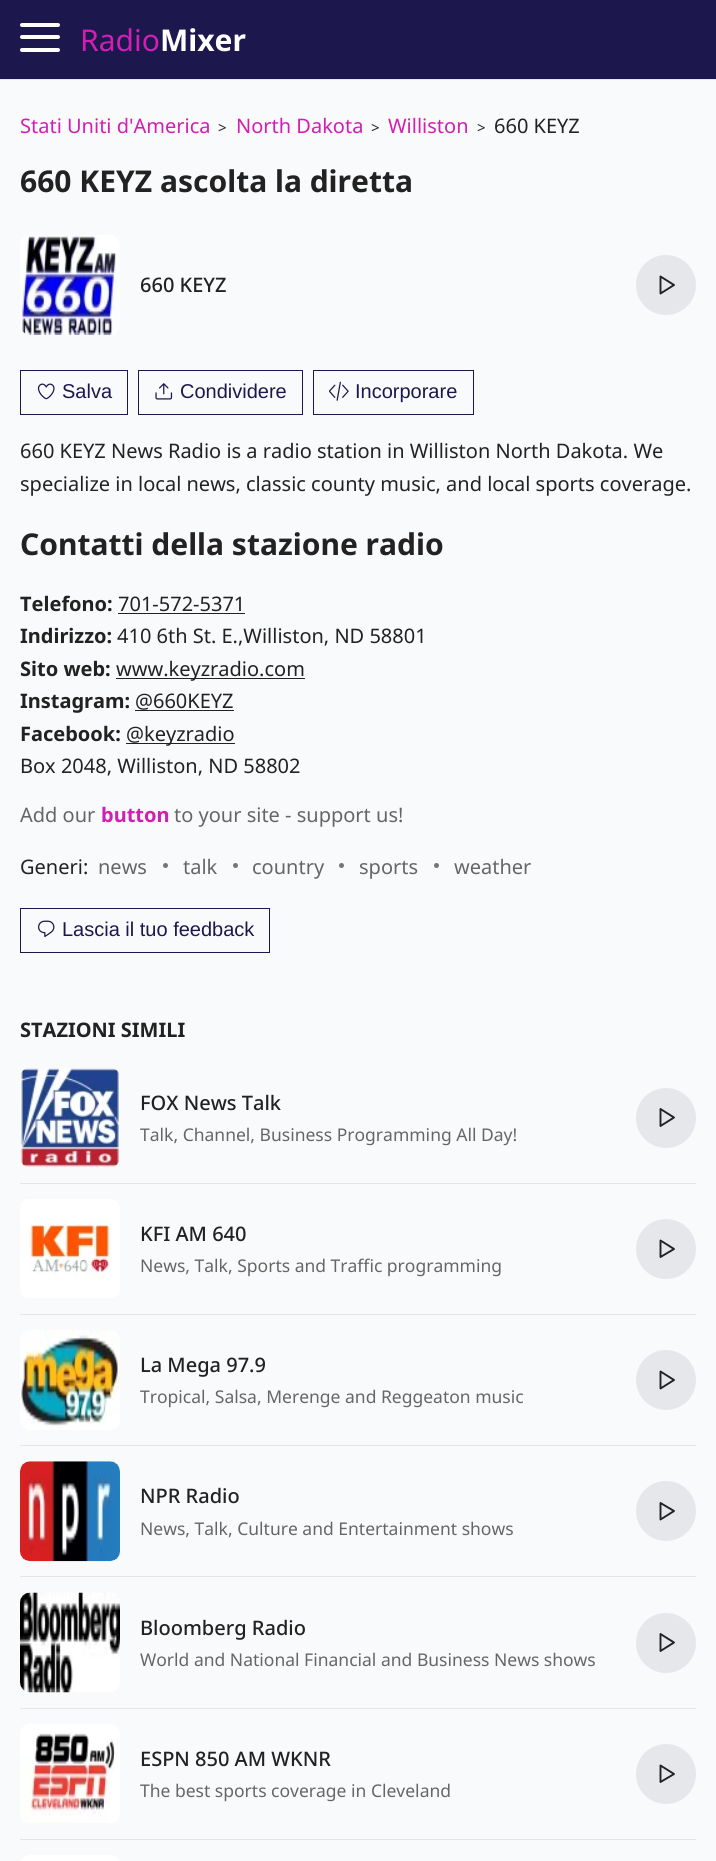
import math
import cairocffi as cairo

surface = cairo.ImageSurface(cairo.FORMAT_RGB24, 716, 1861)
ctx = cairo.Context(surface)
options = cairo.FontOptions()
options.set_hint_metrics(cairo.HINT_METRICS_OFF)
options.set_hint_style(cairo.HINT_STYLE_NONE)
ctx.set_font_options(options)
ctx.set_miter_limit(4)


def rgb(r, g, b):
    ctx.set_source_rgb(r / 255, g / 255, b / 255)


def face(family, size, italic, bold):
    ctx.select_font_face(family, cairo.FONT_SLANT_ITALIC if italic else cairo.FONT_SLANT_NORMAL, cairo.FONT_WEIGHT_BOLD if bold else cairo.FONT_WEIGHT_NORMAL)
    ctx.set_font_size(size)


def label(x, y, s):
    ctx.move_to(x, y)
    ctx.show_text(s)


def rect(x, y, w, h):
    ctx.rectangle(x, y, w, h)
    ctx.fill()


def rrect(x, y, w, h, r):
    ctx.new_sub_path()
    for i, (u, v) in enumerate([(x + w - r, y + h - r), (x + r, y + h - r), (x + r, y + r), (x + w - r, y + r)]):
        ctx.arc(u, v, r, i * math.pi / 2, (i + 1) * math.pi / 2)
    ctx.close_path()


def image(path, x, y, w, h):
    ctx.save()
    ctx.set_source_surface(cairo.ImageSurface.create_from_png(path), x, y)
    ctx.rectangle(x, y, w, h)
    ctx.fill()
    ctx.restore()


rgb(249, 250, 251)
ctx.paint()
rgb(28, 23, 77)
rect(0, 0, 716, 79)
rgb(230, 230, 230)
rect(0, 79, 716, 1)
rgb(255, 255, 255)
rrect(20, 35, 40, 4, 2)
ctx.fill()
rrect(20, 23, 40, 4, 2)
ctx.fill()
rrect(20, 48, 40, 4, 2)
ctx.fill()
face('Noto Sans', 30, 0, 0)
rgb(209, 30, 179)
label(80, 51, 'Radio')
face('Noto Sans', 30, 0, 1)
rgb(255, 255, 255)
label(160, 51, 'Mixer')
face('Noto Sans', 20, 0, 0)
rgb(209, 30, 179)
label(20, 133, 'Stati Uniti d\'America')
face('Noto Sans', 15, 0, 0)
rgb(34, 34, 34)
label(218, 133, '>')
face('Noto Sans', 20, 0, 0)
rgb(209, 30, 179)
label(236, 133, 'North Dakota')
face('Noto Sans', 15, 0, 0)
rgb(34, 34, 34)
label(371, 133, '>')
face('Noto Sans', 20, 0, 0)
rgb(209, 30, 179)
label(388, 133, 'Williston')
face('Noto Sans', 15, 0, 0)
rgb(34, 34, 34)
label(477, 133, '>')
face('Noto Sans', 20, 0, 0)
label(494, 133, '660 KEYZ')
face('Noto Sans', 30, 0, 1)
label(20, 192, '660 KEYZ ascolta la diretta')
image('image0.png', 20, 235, 100, 100)
face('Noto Sans Medium', 20, 0, 0)
label(140, 292, '660 KEYZ')
rgb(229, 231, 235)
ctx.new_path()
ctx.arc(666, 285, 30, 0, 2 * math.pi)
ctx.fill()
ctx.new_path()
ctx.move_to(660.5, 276.5)
ctx.line_to(674, 285)
ctx.line_to(660.5, 293.5)
ctx.close_path()
rgb(34, 34, 34)
ctx.set_line_width(1.9)
ctx.set_line_cap(cairo.LINE_CAP_ROUND)
ctx.set_line_join(cairo.LINE_JOIN_ROUND)
ctx.stroke()
ctx.rectangle(20.5, 370.5, 107, 44)
rgb(28, 23, 77)
ctx.set_line_width(1)
ctx.set_line_cap(cairo.LINE_CAP_BUTT)
ctx.set_line_join(cairo.LINE_JOIN_MITER)
ctx.stroke()
image('image1.png', 37, 383, 18, 17)
face('Liberation Sans', 20, 0, 0)
label(62, 398, 'Salva')
ctx.rectangle(138.5, 370.5, 164, 44)
ctx.stroke()
image('image2.png', 155, 383, 18, 17)
label(180, 398, 'Condividere')
ctx.rectangle(313.5, 370.5, 160, 44)
ctx.stroke()
image('image3.png', 329, 381, 20, 20)
label(355, 398, 'Incorporare')
face('Noto Sans', 20, 0, 0)
rgb(34, 34, 34)
label(20, 458, '660 KEYZ News Radio is a radio station in Williston North Dakota. We')
label(20, 491, 'specialize in local news, classic county music, and local sports coverage.')
face('Noto Sans', 30, 0, 1)
label(20, 555, 'Contatti della stazione radio')
face('Noto Sans', 20, 0, 1)
label(20, 611, 'Telefono:')
face('Noto Sans', 20, 0, 0)
label(118, 611, '701-572-5371')
rect(118, 613, 127, 1)
face('Noto Sans', 20, 0, 1)
label(20, 643, 'Indirizzo:')
face('Noto Sans', 20, 0, 0)
label(117, 643, '410 6th St. E.,Williston, ND 58801')
face('Noto Sans', 20, 0, 1)
label(20, 676, 'Sito web:')
rect(116, 678, 189, 1)
face('Noto Sans', 20, 0, 0)
label(116, 676, 'www.keyzradio.com')
face('Noto Sans', 20, 0, 1)
label(20, 708, 'Instagram:')
face('Noto Sans', 20, 0, 0)
label(135, 708, '@660KEYZ')
rect(135, 710, 99, 1)
face('Noto Sans', 20, 0, 1)
label(20, 741, 'Facebook:')
rect(126, 743, 109, 1)
face('Noto Sans', 20, 0, 0)
label(126, 741, '@keyzradio')
label(20, 773, 'Box 2048, Williston, ND 58802')
rgb(102, 102, 102)
label(20, 822, 'Add our')
face('Noto Sans', 20, 0, 1)
rgb(209, 30, 179)
label(101, 822, 'button')
face('Noto Sans', 20, 0, 0)
rgb(102, 102, 102)
label(174, 822, 'to your site - support us!')
rgb(34, 34, 34)
label(20, 874, 'Generi:')
rgb(102, 102, 102)
label(98, 874, 'news')
rgb(117, 117, 117)
ctx.new_path()
ctx.arc(165.5, 865.5, 2.5, 0, 2 * math.pi)
ctx.fill()
rgb(102, 102, 102)
label(183, 874, 'talk')
rgb(117, 117, 117)
ctx.new_path()
ctx.arc(235.5, 865.5, 2.5, 0, 2 * math.pi)
ctx.fill()
rgb(102, 102, 102)
label(252, 874, 'country')
rgb(117, 117, 117)
ctx.new_path()
ctx.arc(341.5, 865.5, 2.5, 0, 2 * math.pi)
ctx.fill()
rgb(102, 102, 102)
label(359, 874, 'sports')
rgb(117, 117, 117)
ctx.new_path()
ctx.arc(436.5, 865.5, 2.5, 0, 2 * math.pi)
ctx.fill()
rgb(102, 102, 102)
label(454, 874, 'weather')
ctx.rectangle(20.5, 908.5, 249, 44)
rgb(28, 23, 77)
ctx.stroke()
image('image4.png', 38, 920, 17, 17)
face('Liberation Sans', 20, 0, 0)
label(62, 936, 'Lascia il tuo feedback')
face('Noto Sans', 20, 0, 1)
rgb(34, 34, 34)
label(20, 1037, 'STAZIONI SIMILI')
rgb(230, 230, 230)
rect(20, 1183, 676, 1)
image('image5.png', 20, 1068, 100, 99)
face('Noto Sans Medium', 20, 0, 0)
rgb(34, 34, 34)
label(140, 1110, 'FOX News Talk')
face('Noto Sans', 17.5, 0, 0)
rgb(102, 102, 102)
label(140, 1141, 'Talk, Channel, Business Programming All Day!')
rgb(229, 231, 235)
ctx.new_path()
ctx.arc(666, 1118, 30, 0, 2 * math.pi)
ctx.fill()
ctx.new_path()
ctx.move_to(660.5, 1109)
ctx.line_to(674, 1117.5)
ctx.line_to(660.5, 1126)
ctx.close_path()
rgb(34, 34, 34)
ctx.set_line_width(1.9)
ctx.set_line_cap(cairo.LINE_CAP_ROUND)
ctx.set_line_join(cairo.LINE_JOIN_ROUND)
ctx.stroke()
rgb(230, 230, 230)
rect(20, 1314, 676, 1)
image('image6.png', 20, 1199, 100, 99)
face('Noto Sans Medium', 20, 0, 0)
rgb(34, 34, 34)
label(140, 1241, 'KFI AM 640')
face('Noto Sans', 17.5, 0, 0)
rgb(102, 102, 102)
label(140, 1272, 'News, Talk, Sports and Traffic programming')
rgb(229, 231, 235)
ctx.new_path()
ctx.arc(666, 1249, 30, 0, 2 * math.pi)
ctx.fill()
ctx.new_path()
ctx.move_to(660.5, 1240.5)
ctx.line_to(674, 1249)
ctx.line_to(660.5, 1257)
ctx.close_path()
rgb(34, 34, 34)
ctx.stroke()
rgb(230, 230, 230)
rect(20, 1445, 676, 1)
image('image7.png', 20, 1330, 100, 100)
face('Noto Sans Medium', 20, 0, 0)
rgb(34, 34, 34)
label(140, 1372, 'La Mega 97.9')
face('Noto Sans', 17.5, 0, 0)
rgb(102, 102, 102)
label(140, 1403, 'Tropical, Salsa, Merenge and Reggeaton music')
rgb(229, 231, 235)
ctx.new_path()
ctx.arc(666, 1380, 30, 0, 2 * math.pi)
ctx.fill()
ctx.new_path()
ctx.move_to(660.5, 1371.5)
ctx.line_to(674, 1380)
ctx.line_to(660.5, 1388.5)
ctx.close_path()
rgb(34, 34, 34)
ctx.stroke()
rgb(230, 230, 230)
rect(20, 1576, 676, 1)
image('image8.png', 20, 1461, 100, 101)
face('Noto Sans Medium', 20, 0, 0)
rgb(34, 34, 34)
label(140, 1503, 'NPR Radio')
face('Noto Sans', 17.5, 0, 0)
rgb(102, 102, 102)
label(140, 1535, 'News, Talk, Culture and Entertainment shows')
rgb(229, 231, 235)
ctx.new_path()
ctx.arc(666, 1511, 30, 0, 2 * math.pi)
ctx.fill()
ctx.new_path()
ctx.move_to(660.5, 1503)
ctx.line_to(674, 1511)
ctx.line_to(660.5, 1519.5)
ctx.close_path()
rgb(34, 34, 34)
ctx.stroke()
rgb(230, 230, 230)
rect(20, 1708, 676, 1)
image('image9.png', 20, 1592, 100, 101)
face('Noto Sans Medium', 20, 0, 0)
rgb(34, 34, 34)
label(140, 1635, 'Bloomberg Radio')
face('Noto Sans', 17.5, 0, 0)
rgb(102, 102, 102)
label(140, 1666, 'World and National Financial and Business News shows')
rgb(229, 231, 235)
ctx.new_path()
ctx.arc(666, 1643, 30, 0, 2 * math.pi)
ctx.fill()
ctx.new_path()
ctx.move_to(660.5, 1634)
ctx.line_to(674, 1642.5)
ctx.line_to(660.5, 1651)
ctx.close_path()
rgb(34, 34, 34)
ctx.stroke()
rgb(230, 230, 230)
rect(20, 1839, 676, 1)
image('image10.png', 20, 1724, 100, 99)
face('Noto Sans Medium', 20, 0, 0)
rgb(34, 34, 34)
label(140, 1766, 'ESPN 850 AM WKNR')
face('Noto Sans', 17.5, 0, 0)
rgb(102, 102, 102)
label(140, 1797, 'The best sports coverage in Cleveland')
rgb(229, 231, 235)
ctx.new_path()
ctx.arc(666, 1774, 30, 0, 2 * math.pi)
ctx.fill()
ctx.new_path()
ctx.move_to(660.5, 1765.5)
ctx.line_to(674, 1774)
ctx.line_to(660.5, 1782)
ctx.close_path()
rgb(34, 34, 34)
ctx.stroke()
image('image11.png', 21, 1855, 98, 6)
surface.write_to_png('render.png')
